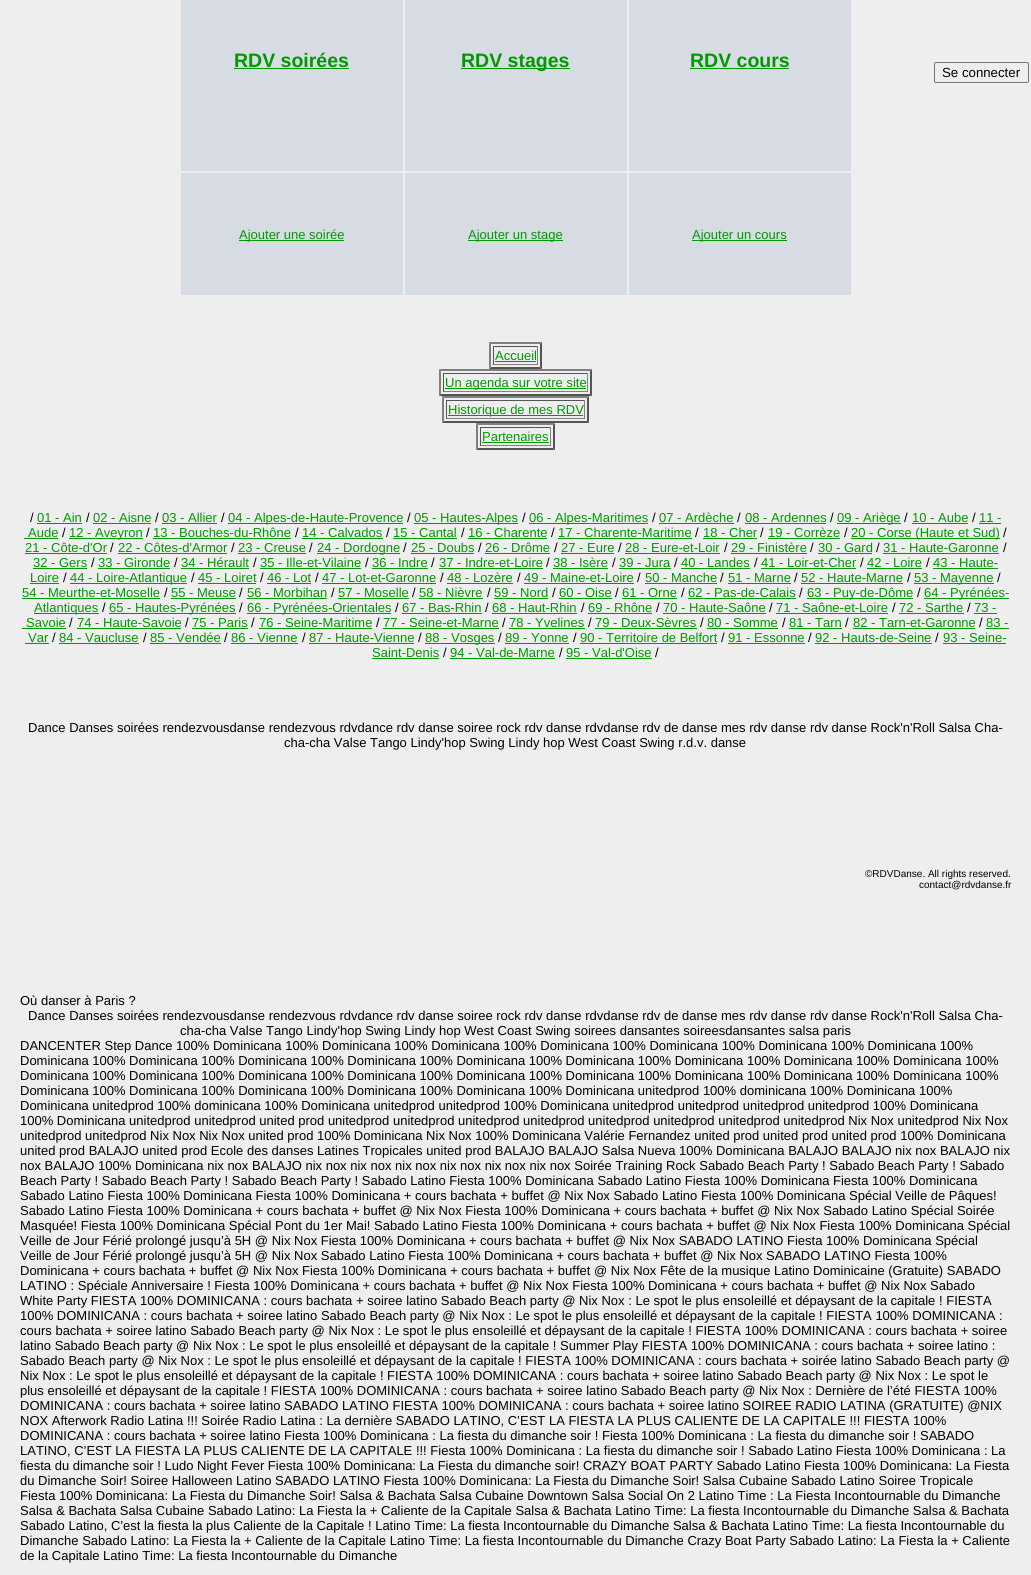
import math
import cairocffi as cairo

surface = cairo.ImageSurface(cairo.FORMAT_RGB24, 1031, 1575)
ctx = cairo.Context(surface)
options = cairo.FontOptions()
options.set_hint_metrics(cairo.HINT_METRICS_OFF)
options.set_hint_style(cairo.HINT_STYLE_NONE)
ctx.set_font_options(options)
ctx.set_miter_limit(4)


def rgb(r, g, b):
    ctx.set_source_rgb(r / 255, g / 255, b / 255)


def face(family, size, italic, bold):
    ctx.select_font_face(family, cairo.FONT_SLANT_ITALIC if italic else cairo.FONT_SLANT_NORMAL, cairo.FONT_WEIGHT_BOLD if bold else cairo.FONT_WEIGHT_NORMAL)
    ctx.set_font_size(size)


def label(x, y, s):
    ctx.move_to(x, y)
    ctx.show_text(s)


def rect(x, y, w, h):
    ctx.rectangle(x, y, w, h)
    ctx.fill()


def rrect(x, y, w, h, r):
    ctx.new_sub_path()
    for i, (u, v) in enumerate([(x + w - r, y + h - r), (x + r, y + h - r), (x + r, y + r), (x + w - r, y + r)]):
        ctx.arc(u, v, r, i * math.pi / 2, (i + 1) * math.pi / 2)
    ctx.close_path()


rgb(238, 238, 238)
ctx.paint()
rgb(215, 219, 227)
rect(181, 0, 222, 171)
face('Liberation Sans', 19.5, 0, 1)
rgb(0, 153, 0)
label(234, 67, 'RDV soirées')
rect(234, 68, 115, 1)
rgb(215, 219, 227)
rect(405, 0, 222, 171)
rgb(0, 153, 0)
rect(461, 68, 109, 1)
label(461, 67, 'RDV stages')
rgb(215, 219, 227)
rect(629, 0, 222, 171)
rgb(0, 153, 0)
label(690, 67, 'RDV cours')
rect(690, 68, 99, 1)
rgb(215, 219, 227)
rect(181, 173, 222, 122)
rgb(0, 153, 0)
rect(239, 240, 105, 1)
face('Liberation Sans', 13, 0, 0)
label(239, 239, 'Ajouter une soirée')
rgb(215, 219, 227)
rect(405, 173, 222, 122)
rgb(0, 153, 0)
rect(468, 240, 95, 1)
label(468, 239, 'Ajouter un stage')
rgb(215, 219, 227)
rect(629, 173, 222, 122)
rgb(0, 153, 0)
rect(692, 240, 95, 1)
label(692, 239, 'Ajouter un cours')
rrect(934.5, 62.5, 94, 20, 1.5)
rgb(118, 118, 118)
ctx.set_line_width(1)
ctx.stroke()
face('Liberation Sans', 13.25, 0, 0)
rgb(0, 0, 0)
label(942, 77, 'Se connecter')
rgb(128, 128, 128)
ctx.new_path()
ctx.move_to(489, 342)
ctx.line_to(542, 342)
ctx.line_to(540, 344)
ctx.line_to(491, 344)
ctx.close_path()
ctx.fill()
rgb(85, 85, 85)
ctx.new_path()
ctx.move_to(542, 342)
ctx.line_to(542, 369)
ctx.line_to(540, 367)
ctx.line_to(540, 344)
ctx.close_path()
ctx.fill()
ctx.new_path()
ctx.move_to(542, 369)
ctx.line_to(489, 369)
ctx.line_to(491, 367)
ctx.line_to(540, 367)
ctx.close_path()
ctx.fill()
rgb(128, 128, 128)
ctx.new_path()
ctx.move_to(489, 369)
ctx.line_to(489, 342)
ctx.line_to(491, 344)
ctx.line_to(491, 367)
ctx.close_path()
ctx.fill()
rgb(85, 85, 85)
rect(493, 346, 45, 1)
rgb(128, 128, 128)
rect(537, 346, 1, 19)
rect(493, 364, 45, 1)
rgb(85, 85, 85)
rect(493, 346, 1, 19)
face('Liberation Sans', 13, 0, 0)
rgb(0, 153, 0)
label(495, 360, 'Accueil')
rect(495, 361, 41, 1)
rgb(128, 128, 128)
ctx.new_path()
ctx.move_to(439, 369)
ctx.line_to(592, 369)
ctx.line_to(590, 371)
ctx.line_to(441, 371)
ctx.close_path()
ctx.fill()
rgb(85, 85, 85)
ctx.new_path()
ctx.move_to(592, 369)
ctx.line_to(592, 396)
ctx.line_to(590, 394)
ctx.line_to(590, 371)
ctx.close_path()
ctx.fill()
ctx.new_path()
ctx.move_to(592, 396)
ctx.line_to(439, 396)
ctx.line_to(441, 394)
ctx.line_to(590, 394)
ctx.close_path()
ctx.fill()
rgb(128, 128, 128)
ctx.new_path()
ctx.move_to(439, 396)
ctx.line_to(439, 369)
ctx.line_to(441, 371)
ctx.line_to(441, 394)
ctx.close_path()
ctx.fill()
rgb(85, 85, 85)
rect(443, 373, 145, 1)
rgb(128, 128, 128)
rect(587, 373, 1, 19)
rect(443, 391, 145, 1)
rgb(85, 85, 85)
rect(443, 373, 1, 19)
rgb(0, 153, 0)
rect(445, 388, 141, 1)
label(445, 387, 'Un agenda sur votre site')
rgb(128, 128, 128)
ctx.new_path()
ctx.move_to(442, 396)
ctx.line_to(589, 396)
ctx.line_to(587, 398)
ctx.line_to(444, 398)
ctx.close_path()
ctx.fill()
rgb(85, 85, 85)
ctx.new_path()
ctx.move_to(589, 396)
ctx.line_to(589, 423)
ctx.line_to(587, 421)
ctx.line_to(587, 398)
ctx.close_path()
ctx.fill()
ctx.new_path()
ctx.move_to(589, 423)
ctx.line_to(442, 423)
ctx.line_to(444, 421)
ctx.line_to(587, 421)
ctx.close_path()
ctx.fill()
rgb(128, 128, 128)
ctx.new_path()
ctx.move_to(442, 423)
ctx.line_to(442, 396)
ctx.line_to(444, 398)
ctx.line_to(444, 421)
ctx.close_path()
ctx.fill()
rgb(85, 85, 85)
rect(446, 400, 139, 1)
rgb(128, 128, 128)
rect(584, 400, 1, 19)
rect(446, 418, 139, 1)
rgb(85, 85, 85)
rect(446, 400, 1, 19)
rgb(0, 153, 0)
rect(448, 415, 135, 1)
label(448, 414, 'Historique de mes RDV')
rgb(128, 128, 128)
ctx.new_path()
ctx.move_to(476, 423)
ctx.line_to(555, 423)
ctx.line_to(553, 425)
ctx.line_to(478, 425)
ctx.close_path()
ctx.fill()
rgb(85, 85, 85)
ctx.new_path()
ctx.move_to(555, 423)
ctx.line_to(555, 450)
ctx.line_to(553, 448)
ctx.line_to(553, 425)
ctx.close_path()
ctx.fill()
ctx.new_path()
ctx.move_to(555, 450)
ctx.line_to(476, 450)
ctx.line_to(478, 448)
ctx.line_to(553, 448)
ctx.close_path()
ctx.fill()
rgb(128, 128, 128)
ctx.new_path()
ctx.move_to(476, 450)
ctx.line_to(476, 423)
ctx.line_to(478, 425)
ctx.line_to(478, 448)
ctx.close_path()
ctx.fill()
rgb(85, 85, 85)
rect(480, 427, 71, 1)
rgb(128, 128, 128)
rect(550, 427, 1, 19)
rect(480, 445, 71, 1)
rgb(85, 85, 85)
rect(480, 427, 1, 19)
rgb(0, 153, 0)
label(482, 441, 'Partenaires')
rect(482, 442, 67, 1)
rgb(0, 0, 0)
label(30, 522, '/')
rgb(0, 153, 0)
label(37, 522, '01 - Ain')
rect(37, 523, 45, 1)
rgb(0, 0, 0)
label(86, 522, '/')
rgb(0, 153, 0)
label(93, 522, '02 - Aisne')
rect(93, 523, 58, 1)
rgb(0, 0, 0)
label(155, 522, '/')
rgb(0, 153, 0)
label(162, 522, '03 - Allier')
rect(162, 523, 55, 1)
rgb(0, 0, 0)
label(221, 522, '/')
rgb(0, 153, 0)
rect(228, 523, 175, 1)
label(228, 522, '04 - Alpes-de-Haute-Provence')
rgb(0, 0, 0)
label(407, 522, '/')
rgb(0, 153, 0)
rect(414, 523, 104, 1)
label(414, 522, '05 - Hautes-Alpes')
rgb(0, 0, 0)
label(522, 522, '/')
rgb(0, 153, 0)
rect(529, 523, 119, 1)
label(529, 522, '06 - Alpes-Maritimes')
rgb(0, 0, 0)
label(652, 522, '/')
rgb(0, 153, 0)
label(659, 522, '07 - Ardèche')
rect(659, 523, 75, 1)
rgb(0, 0, 0)
label(737, 522, '/')
rgb(0, 153, 0)
label(745, 522, '08 - Ardennes')
rect(745, 523, 81, 1)
rgb(0, 0, 0)
label(830, 522, '/')
rgb(0, 153, 0)
rect(837, 523, 64, 1)
label(837, 522, '09 - Ariège')
rgb(0, 0, 0)
label(904, 522, '/')
rgb(0, 153, 0)
label(912, 522, '10 - Aube')
rect(912, 523, 56, 1)
rgb(0, 0, 0)
label(972, 522, '/')
rgb(0, 153, 0)
label(979, 522, '11 -')
rect(979, 523, 22, 1)
label(28, 537, 'Aude')
rect(24, 538, 34, 1)
rgb(0, 0, 0)
label(62, 537, '/')
rgb(0, 153, 0)
rect(69, 538, 74, 1)
label(69, 537, '12 - Aveyron')
rgb(0, 0, 0)
label(146, 537, '/')
rgb(0, 153, 0)
label(153, 537, '13 - Bouches-du-Rhône')
rect(153, 538, 138, 1)
rgb(0, 0, 0)
label(295, 537, '/')
rgb(0, 153, 0)
label(302, 537, '14 - Calvados')
rect(302, 538, 81, 1)
rgb(0, 0, 0)
label(386, 537, '/')
rgb(0, 153, 0)
label(393, 537, '15 - Cantal')
rect(393, 538, 64, 1)
rgb(0, 0, 0)
label(461, 537, '/')
rgb(0, 153, 0)
label(468, 537, '16 - Charente')
rect(468, 538, 79, 1)
rgb(0, 0, 0)
label(551, 537, '/')
rgb(0, 153, 0)
label(558, 537, '17 - Charente-Maritime')
rect(558, 538, 134, 1)
rgb(0, 0, 0)
label(695, 537, '/')
rgb(0, 153, 0)
label(703, 537, '18 - Cher')
rect(703, 538, 54, 1)
rgb(0, 0, 0)
label(760, 537, '/')
rgb(0, 153, 0)
label(768, 537, '19 - Corrèze')
rect(768, 538, 72, 1)
rgb(0, 0, 0)
label(844, 537, '/')
rgb(0, 153, 0)
rect(851, 538, 149, 1)
label(851, 537, '20 - Corse (Haute et Sud)')
rgb(0, 0, 0)
label(1003, 537, '/')
rgb(0, 153, 0)
label(25, 552, '21 - Côte-d\'Or')
rect(25, 553, 82, 1)
rgb(0, 0, 0)
label(110, 552, '/')
rgb(0, 153, 0)
label(118, 552, '22 - Côtes-d\'Armor')
rect(118, 553, 109, 1)
rgb(0, 0, 0)
label(231, 552, '/')
rgb(0, 153, 0)
label(238, 552, '23 - Creuse')
rect(238, 553, 68, 1)
rgb(0, 0, 0)
label(309, 552, '/')
rgb(0, 153, 0)
rect(317, 553, 83, 1)
label(317, 552, '24 - Dordogne')
rgb(0, 0, 0)
label(403, 552, '/')
rgb(0, 153, 0)
label(411, 552, '25 - Doubs')
rect(411, 553, 63, 1)
rgb(0, 0, 0)
label(478, 552, '/')
rgb(0, 153, 0)
label(485, 552, '26 - Drôme')
rect(485, 553, 65, 1)
rgb(0, 0, 0)
label(554, 552, '/')
rgb(0, 153, 0)
label(561, 552, '27 - Eure')
rect(561, 553, 53, 1)
rgb(0, 0, 0)
label(618, 552, '/')
rgb(0, 153, 0)
label(625, 552, '28 - Eure-et-Loir')
rect(625, 553, 95, 1)
rgb(0, 0, 0)
label(724, 552, '/')
rgb(0, 153, 0)
label(731, 552, '29 - Finistère')
rect(731, 553, 76, 1)
rgb(0, 0, 0)
label(810, 552, '/')
rgb(0, 153, 0)
label(818, 552, '30 - Gard')
rect(818, 553, 54, 1)
rgb(0, 0, 0)
label(876, 552, '/')
rgb(0, 153, 0)
label(883, 552, '31 - Haute-Garonne')
rect(883, 553, 116, 1)
rgb(0, 0, 0)
label(1003, 552, '/')
rgb(0, 153, 0)
label(33, 567, '32 - Gers')
rect(33, 568, 54, 1)
rgb(0, 0, 0)
label(91, 567, '/')
rgb(0, 153, 0)
label(98, 567, '33 - Gironde')
rect(98, 568, 72, 1)
rgb(0, 0, 0)
label(174, 567, '/')
rgb(0, 153, 0)
label(181, 567, '34 - Hérault')
rect(181, 568, 68, 1)
rgb(0, 0, 0)
label(253, 567, '/')
rgb(0, 153, 0)
label(260, 567, '35 - Ille-et-Vilaine')
rect(260, 568, 101, 1)
rgb(0, 0, 0)
label(365, 567, '/')
rgb(0, 153, 0)
label(372, 567, '36 - Indre')
rect(372, 568, 56, 1)
rgb(0, 0, 0)
label(431, 567, '/')
rgb(0, 153, 0)
label(439, 567, '37 - Indre-et-Loire')
rect(439, 568, 104, 1)
rgb(0, 0, 0)
label(546, 567, '/')
rgb(0, 153, 0)
label(553, 567, '38 - Isère')
rect(553, 568, 55, 1)
rgb(0, 0, 0)
label(612, 567, '/')
rgb(0, 153, 0)
label(619, 567, '39 - Jura')
rect(619, 568, 52, 1)
rgb(0, 0, 0)
label(674, 567, '/')
rgb(0, 153, 0)
label(681, 567, '40 - Landes')
rect(681, 568, 69, 1)
rgb(0, 0, 0)
label(754, 567, '/')
rgb(0, 153, 0)
label(761, 567, '41 - Loir-et-Cher')
rect(761, 568, 95, 1)
rgb(0, 0, 0)
label(860, 567, '/')
rgb(0, 153, 0)
label(867, 567, '42 - Loire')
rect(867, 568, 55, 1)
rgb(0, 0, 0)
label(926, 567, '/')
rgb(0, 153, 0)
label(933, 567, '43 - Haute-')
rect(933, 568, 65, 1)
label(30, 582, 'Loire')
rect(30, 583, 29, 1)
rgb(0, 0, 0)
label(63, 582, '/')
rgb(0, 153, 0)
rect(70, 583, 117, 1)
label(70, 582, '44 - Loire-Atlantique')
rgb(0, 0, 0)
label(191, 582, '/')
rgb(0, 153, 0)
label(198, 582, '45 - Loiret')
rect(198, 583, 58, 1)
rgb(0, 0, 0)
label(260, 582, '/')
rgb(0, 153, 0)
label(267, 582, '46 - Lot')
rect(267, 583, 44, 1)
rgb(0, 0, 0)
label(315, 582, '/')
rgb(0, 153, 0)
label(322, 582, '47 - Lot-et-Garonne')
rect(322, 583, 114, 1)
rgb(0, 0, 0)
label(440, 582, '/')
rgb(0, 153, 0)
label(447, 582, '48 - Lozère')
rect(447, 583, 66, 1)
rgb(0, 0, 0)
label(517, 582, '/')
rgb(0, 153, 0)
label(524, 582, '49 - Maine-et-Loire')
rect(524, 583, 110, 1)
rgb(0, 0, 0)
label(637, 582, '/')
rgb(0, 153, 0)
label(645, 582, '50 - Manche')
rect(645, 583, 72, 1)
rgb(0, 0, 0)
label(720, 582, '/')
rgb(0, 153, 0)
label(728, 582, '51 - Marne')
rect(728, 583, 63, 1)
rgb(0, 0, 0)
label(794, 582, '/')
rgb(0, 153, 0)
label(801, 582, '52 - Haute-Marne')
rect(801, 583, 102, 1)
rgb(0, 0, 0)
label(907, 582, '/')
rgb(0, 153, 0)
rect(914, 583, 80, 1)
label(914, 582, '53 - Mayenne')
rgb(0, 0, 0)
label(997, 582, '/')
rgb(0, 153, 0)
label(22, 597, '54 - Meurthe-et-Moselle')
rect(22, 598, 138, 1)
rgb(0, 0, 0)
label(164, 597, '/')
rgb(0, 153, 0)
label(171, 597, '55 - Meuse')
rect(171, 598, 65, 1)
rgb(0, 0, 0)
label(239, 597, '/')
rgb(0, 153, 0)
label(247, 597, '56 - Morbihan')
rect(247, 598, 80, 1)
rgb(0, 0, 0)
label(331, 597, '/')
rgb(0, 153, 0)
label(338, 597, '57 - Moselle')
rect(338, 598, 71, 1)
rgb(0, 0, 0)
label(412, 597, '/')
rgb(0, 153, 0)
label(419, 597, '58 - Nièvre')
rect(419, 598, 64, 1)
rgb(0, 0, 0)
label(487, 597, '/')
rgb(0, 153, 0)
label(494, 597, '59 - Nord')
rect(494, 598, 54, 1)
rgb(0, 0, 0)
label(552, 597, '/')
rgb(0, 153, 0)
label(559, 597, '60 - Oise')
rect(559, 598, 53, 1)
rgb(0, 0, 0)
label(615, 597, '/')
rgb(0, 153, 0)
label(622, 597, '61 - Orne')
rect(622, 598, 55, 1)
rgb(0, 0, 0)
label(681, 597, '/')
rgb(0, 153, 0)
label(688, 597, '62 - Pas-de-Calais')
rect(688, 598, 108, 1)
rgb(0, 0, 0)
label(799, 597, '/')
rgb(0, 153, 0)
rect(807, 598, 106, 1)
label(807, 597, '63 - Puy-de-Dôme')
rgb(0, 0, 0)
label(917, 597, '/')
rgb(0, 153, 0)
rect(924, 598, 85, 1)
label(924, 597, '64 - Pyrénées-')
rect(34, 613, 65, 1)
label(34, 612, 'Atlantiques')
rgb(0, 0, 0)
label(102, 612, '/')
rgb(0, 153, 0)
rect(109, 613, 127, 1)
label(109, 612, '65 - Hautes-Pyrénées')
rgb(0, 0, 0)
label(239, 612, '/')
rgb(0, 153, 0)
rect(247, 613, 144, 1)
label(247, 612, '66 - Pyrénées-Orientales')
rgb(0, 0, 0)
label(395, 612, '/')
rgb(0, 153, 0)
label(402, 612, '67 - Bas-Rhin')
rect(402, 613, 80, 1)
rgb(0, 0, 0)
label(485, 612, '/')
rgb(0, 153, 0)
label(492, 612, '68 - Haut-Rhin')
rect(492, 613, 85, 1)
rgb(0, 0, 0)
label(581, 612, '/')
rgb(0, 153, 0)
label(588, 612, '69 - Rhône')
rect(588, 613, 64, 1)
rgb(0, 0, 0)
label(656, 612, '/')
rgb(0, 153, 0)
label(663, 612, '70 - Haute-Saône')
rect(663, 613, 103, 1)
rgb(0, 0, 0)
label(769, 612, '/')
rgb(0, 153, 0)
label(776, 612, '71 - Saône-et-Loire')
rect(776, 613, 112, 1)
rgb(0, 0, 0)
label(892, 612, '/')
rgb(0, 153, 0)
label(899, 612, '72 - Sarthe')
rect(899, 613, 65, 1)
rgb(0, 0, 0)
label(967, 612, '/')
rgb(0, 153, 0)
label(974, 612, '73 -')
rect(974, 613, 23, 1)
label(26, 627, 'Savoie')
rect(22, 628, 44, 1)
rgb(0, 0, 0)
label(69, 627, '/')
rgb(0, 153, 0)
label(77, 627, '74 - Haute-Savoie')
rect(77, 628, 104, 1)
rgb(0, 0, 0)
label(185, 627, '/')
rgb(0, 153, 0)
label(192, 627, '75 - Paris')
rect(192, 628, 56, 1)
rgb(0, 0, 0)
label(251, 627, '/')
rgb(0, 153, 0)
label(259, 627, '76 - Seine-Maritime')
rect(259, 628, 113, 1)
rgb(0, 0, 0)
label(376, 627, '/')
rgb(0, 153, 0)
label(383, 627, '77 - Seine-et-Marne')
rect(383, 628, 116, 1)
rgb(0, 0, 0)
label(502, 627, '/')
rgb(0, 153, 0)
label(509, 627, '78 - Yvelines')
rect(509, 628, 76, 1)
rgb(0, 0, 0)
label(588, 627, '/')
rgb(0, 153, 0)
label(595, 627, '79 - Deux-Sèvres')
rect(595, 628, 102, 1)
rgb(0, 0, 0)
label(700, 627, '/')
rgb(0, 153, 0)
label(707, 627, '80 - Somme')
rect(707, 628, 71, 1)
rgb(0, 0, 0)
label(782, 627, '/')
rgb(0, 153, 0)
label(789, 627, '81 - Tarn')
rect(789, 628, 53, 1)
rgb(0, 0, 0)
label(845, 627, '/')
rgb(0, 153, 0)
label(853, 627, '82 - Tarn-et-Garonne')
rect(853, 628, 122, 1)
rgb(0, 0, 0)
label(979, 627, '/')
rgb(0, 153, 0)
label(986, 627, '83 -')
rect(986, 628, 23, 1)
label(28, 642, 'Var')
rect(25, 643, 24, 1)
rgb(0, 0, 0)
label(52, 642, '/')
rgb(0, 153, 0)
label(59, 642, '84 - Vaucluse')
rect(59, 643, 80, 1)
rgb(0, 0, 0)
label(143, 642, '/')
rgb(0, 153, 0)
label(150, 642, '85 - Vendée')
rect(150, 643, 71, 1)
rgb(0, 0, 0)
label(224, 642, '/')
rgb(0, 153, 0)
label(231, 642, '86 - Vienne')
rect(231, 643, 67, 1)
rgb(0, 0, 0)
label(302, 642, '/')
rgb(0, 153, 0)
label(309, 642, '87 - Haute-Vienne')
rect(309, 643, 105, 1)
rgb(0, 0, 0)
label(418, 642, '/')
rgb(0, 153, 0)
rect(425, 643, 70, 1)
label(425, 642, '88 - Vosges')
rgb(0, 0, 0)
label(498, 642, '/')
rgb(0, 153, 0)
label(505, 642, '89 - Yonne')
rect(505, 643, 64, 1)
rgb(0, 0, 0)
label(573, 642, '/')
rgb(0, 153, 0)
label(580, 642, '90 - Territoire de Belfort')
rect(580, 643, 137, 1)
rgb(0, 0, 0)
label(721, 642, '/')
rgb(0, 153, 0)
label(728, 642, '91 - Essonne')
rect(728, 643, 77, 1)
rgb(0, 0, 0)
label(808, 642, '/')
rgb(0, 153, 0)
label(815, 642, '92 - Hauts-de-Seine')
rect(815, 643, 117, 1)
rgb(0, 0, 0)
label(935, 642, '/')
rgb(0, 153, 0)
label(943, 642, '93 - Seine-')
rect(943, 643, 63, 1)
label(372, 657, 'Saint-Denis')
rect(372, 658, 67, 1)
rgb(0, 0, 0)
label(443, 657, '/')
rgb(0, 153, 0)
label(450, 657, '94 - Val-de-Marne')
rect(450, 658, 105, 1)
rgb(0, 0, 0)
label(559, 657, '/')
rgb(0, 153, 0)
label(566, 657, '95 - Val-d\'Oise')
rect(566, 658, 86, 1)
rgb(0, 0, 0)
label(655, 657, '/')
label(28, 732, 'Dance Danses soirées rendezvousdanse rendezvous rdvdance rdv danse soiree rock rdv danse rdvdanse rdv de danse mes rdv danse rdv danse Rock\'n\'Roll Salsa Cha-')
label(284, 747, 'cha-cha Valse Tango Lindy\'hop Swing Lindy hop West Coast Swing r.d.v. danse')
face('Liberation Sans', 10, 0, 0)
label(865, 877, '©RDVDanse. All rights reserved.')
label(919, 888, 'contact@rdvdanse.fr')
face('Liberation Sans', 13, 0, 0)
label(20, 1005, 'Où danser à Paris ?')
label(28, 1020, 'Dance Danses soirées rendezvousdanse rendezvous rdvdance rdv danse soiree rock rdv danse rdvdanse rdv de danse mes rdv danse rdv danse Rock\'n\'Roll Salsa Cha-')
label(180, 1035, 'cha-cha Valse Tango Lindy\'hop Swing Lindy hop West Coast Swing soirees dansantes soireesdansantes salsa paris')
label(20, 1050, 'DANCENTER Step Dance 100% Dominicana 100% Dominicana 100% Dominicana 100% Dominicana 100% Dominicana 100% Dominicana 100% Dominicana 100%')
label(20, 1065, 'Dominicana 100% Dominicana 100% Dominicana 100% Dominicana 100% Dominicana 100% Dominicana 100% Dominicana 100% Dominicana 100% Dominicana 100%')
label(20, 1080, 'Dominicana 100% Dominicana 100% Dominicana 100% Dominicana 100% Dominicana 100% Dominicana 100% Dominicana 100% Dominicana 100% Dominicana 100%')
label(20, 1095, 'Dominicana 100% Dominicana 100% Dominicana 100% Dominicana 100% Dominicana 100% Dominicana unitedprod 100% dominicana 100% Dominicana 100%')
label(20, 1110, 'Dominicana unitedprod 100% dominicana 100% Dominicana unitedprod unitedprod 100% Dominicana unitedprod unitedprod unitedprod unitedprod 100% Dominicana')
label(20, 1125, '100% Dominicana unitedprod unitedprod united prod unitedprod unitedprod unitedprod unitedprod unitedprod unitedprod unitedprod unitedprod Nix Nox unitedprod Nix Nox')
label(20, 1140, 'unitedprod unitedprod Nix Nox Nix Nox united prod 100% Dominicana Nix Nox 100% Dominicana Valérie Fernandez united prod united prod united prod 100% Dominicana')
label(20, 1155, 'united prod BALAJO united prod Ecole des danses Latines Tropicales united prod BALAJO BALAJO Salsa Nueva 100% Dominicana BALAJO BALAJO nix nox BALAJO nix')
label(20, 1170, 'nox BALAJO 100% Dominicana nix nox BALAJO nix nox nix nox nix nox nix nox nix nox nix nox Soirée Training Rock Sabado Beach Party ! Sabado Beach Party ! Sabado')
label(20, 1185, 'Beach Party ! Sabado Beach Party ! Sabado Beach Party ! Sabado Latino Fiesta 100% Dominicana Sabado Latino Fiesta 100% Dominicana Fiesta 100% Dominicana')
label(20, 1200, 'Sabado Latino Fiesta 100% Dominicana Fiesta 100% Dominicana + cours bachata + buffet @ Nix Nox Sabado Latino Fiesta 100% Dominicana Spécial Veille de Pâques!')
label(20, 1215, 'Sabado Latino Fiesta 100% Dominicana + cours bachata + buffet @ Nix Nox Fiesta 100% Dominicana + cours bachata + buffet @ Nix Nox Sabado Latino Spécial Soirée')
label(20, 1230, 'Masquée! Fiesta 100% Dominicana Spécial Pont du 1er Mai! Sabado Latino Fiesta 100% Dominicana + cours bachata + buffet @ Nix Nox Fiesta 100% Dominicana Spécial')
label(20, 1245, 'Veille de Jour Férié prolongé jusqu’à 5H @ Nix Nox Fiesta 100% Dominicana + cours bachata + buffet @ Nix Nox SABADO LATINO Fiesta 100% Dominicana Spécial')
label(20, 1260, 'Veille de Jour Férié prolongé jusqu’à 5H @ Nix Nox Sabado Latino Fiesta 100% Dominicana + cours bachata + buffet @ Nix Nox SABADO LATINO Fiesta 100%')
label(20, 1275, 'Dominicana + cours bachata + buffet @ Nix Nox Fiesta 100% Dominicana + cours bachata + buffet @ Nix Nox Fête de la musique Latino Dominicaine (Gratuite) SABADO')
label(20, 1290, 'LATINO : Spéciale Anniversaire ! Fiesta 100% Dominicana + cours bachata + buffet @ Nix Nox Fiesta 100% Dominicana + cours bachata + buffet @ Nix Nox Sabado')
label(20, 1305, 'White Party FIESTA 100% DOMINICANA : cours bachata + soiree latino Sabado Beach party @ Nix Nox : Le spot le plus ensoleillé et dépaysant de la capitale ! FIESTA')
label(20, 1320, '100% DOMINICANA : cours bachata + soiree latino Sabado Beach party @ Nix Nox : Le spot le plus ensoleillé et dépaysant de la capitale ! FIESTA 100% DOMINICANA :')
label(20, 1335, 'cours bachata + soiree latino Sabado Beach party @ Nix Nox : Le spot le plus ensoleillé et dépaysant de la capitale ! FIESTA 100% DOMINICANA : cours bachata + soiree')
label(20, 1350, 'latino Sabado Beach party @ Nix Nox : Le spot le plus ensoleillé et dépaysant de la capitale ! Summer Play FIESTA 100% DOMINICANA : cours bachata + soiree latino :')
label(20, 1365, 'Sabado Beach party @ Nix Nox : Le spot le plus ensoleillé et dépaysant de la capitale ! FIESTA 100% DOMINICANA : cours bachata + soirée latino Sabado Beach party @')
label(20, 1380, 'Nix Nox : Le spot le plus ensoleillé et dépaysant de la capitale ! FIESTA 100% DOMINICANA : cours bachata + soiree latino Sabado Beach party @ Nix Nox : Le spot le')
label(20, 1395, 'plus ensoleillé et dépaysant de la capitale ! FIESTA 100% DOMINICANA : cours bachata + soiree latino Sabado Beach party @ Nix Nox : Dernière de l’été FIESTA 100%')
label(20, 1410, 'DOMINICANA : cours bachata + soiree latino SABADO LATINO FIESTA 100% DOMINICANA : cours bachata + soiree latino SOIREE RADIO LATINA (GRATUITE) @NIX')
label(20, 1425, 'NOX Afterwork Radio Latina !!! Soirée Radio Latina : La dernière SABADO LATINO, C’EST LA FIESTA LA PLUS CALIENTE DE LA CAPITALE !!! FIESTA 100%')
label(20, 1440, 'DOMINICANA : cours bachata + soiree latino Fiesta 100% Dominicana : La fiesta du dimanche soir ! Fiesta 100% Dominicana : La fiesta du dimanche soir ! SABADO')
label(20, 1455, 'LATINO, C’EST LA FIESTA LA PLUS CALIENTE DE LA CAPITALE !!! Fiesta 100% Dominicana : La fiesta du dimanche soir ! Sabado Latino Fiesta 100% Dominicana : La')
label(20, 1470, 'fiesta du dimanche soir ! Ludo Night Fever Fiesta 100% Dominicana: La Fiesta du dimanche soir! CRAZY BOAT PARTY Sabado Latino Fiesta 100% Dominicana: La Fiesta')
label(20, 1485, 'du Dimanche Soir! Soiree Halloween Latino SABADO LATINO Fiesta 100% Dominicana: La Fiesta du Dimanche Soir! Salsa Cubaine Sabado Latino Soiree Tropicale')
label(20, 1500, 'Fiesta 100% Dominicana: La Fiesta du Dimanche Soir! Salsa & Bachata Salsa Cubaine Downtown Salsa Social On 2 Latino Time : La Fiesta Incontournable du Dimanche')
label(20, 1515, 'Salsa & Bachata Salsa Cubaine Sabado Latino: La Fiesta la + Caliente de la Capitale Salsa & Bachata Latino Time: La fiesta Incontournable du Dimanche Salsa & Bachata')
label(20, 1530, 'Sabado Latino, C\'est la fiesta la plus Caliente de la Capitale ! Latino Time: La fiesta Incontournable du Dimanche Salsa & Bachata Latino Time: La fiesta Incontournable du')
label(20, 1545, 'Dimanche Sabado Latino: La Fiesta la + Caliente de la Capitale Latino Time: La fiesta Incontournable du Dimanche Crazy Boat Party Sabado Latino: La Fiesta la + Caliente')
label(20, 1560, 'de la Capitale Latino Time: La fiesta Incontournable du Dimanche')
surface.write_to_png('render.png')
